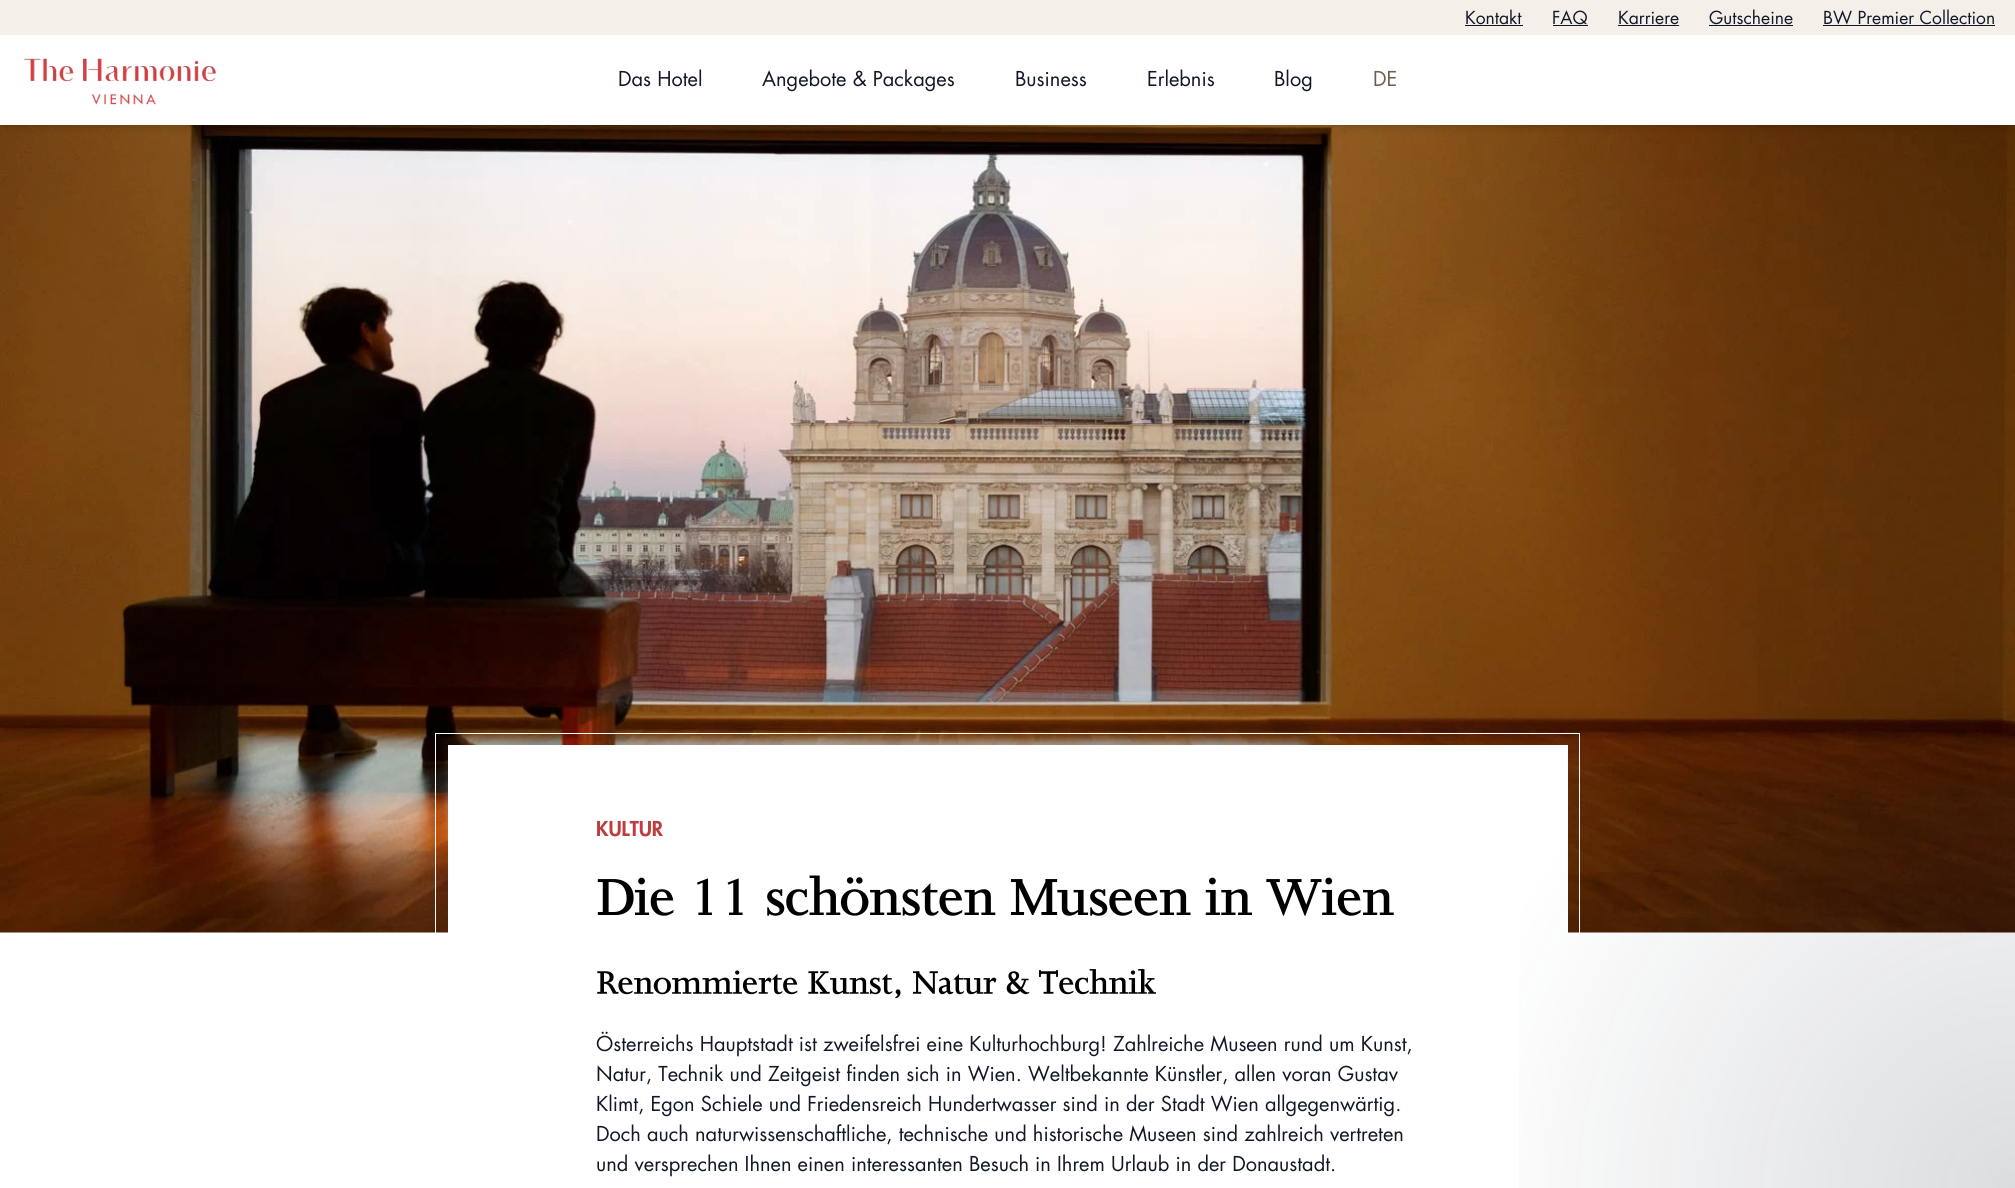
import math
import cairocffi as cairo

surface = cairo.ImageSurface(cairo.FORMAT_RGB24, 2015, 1188)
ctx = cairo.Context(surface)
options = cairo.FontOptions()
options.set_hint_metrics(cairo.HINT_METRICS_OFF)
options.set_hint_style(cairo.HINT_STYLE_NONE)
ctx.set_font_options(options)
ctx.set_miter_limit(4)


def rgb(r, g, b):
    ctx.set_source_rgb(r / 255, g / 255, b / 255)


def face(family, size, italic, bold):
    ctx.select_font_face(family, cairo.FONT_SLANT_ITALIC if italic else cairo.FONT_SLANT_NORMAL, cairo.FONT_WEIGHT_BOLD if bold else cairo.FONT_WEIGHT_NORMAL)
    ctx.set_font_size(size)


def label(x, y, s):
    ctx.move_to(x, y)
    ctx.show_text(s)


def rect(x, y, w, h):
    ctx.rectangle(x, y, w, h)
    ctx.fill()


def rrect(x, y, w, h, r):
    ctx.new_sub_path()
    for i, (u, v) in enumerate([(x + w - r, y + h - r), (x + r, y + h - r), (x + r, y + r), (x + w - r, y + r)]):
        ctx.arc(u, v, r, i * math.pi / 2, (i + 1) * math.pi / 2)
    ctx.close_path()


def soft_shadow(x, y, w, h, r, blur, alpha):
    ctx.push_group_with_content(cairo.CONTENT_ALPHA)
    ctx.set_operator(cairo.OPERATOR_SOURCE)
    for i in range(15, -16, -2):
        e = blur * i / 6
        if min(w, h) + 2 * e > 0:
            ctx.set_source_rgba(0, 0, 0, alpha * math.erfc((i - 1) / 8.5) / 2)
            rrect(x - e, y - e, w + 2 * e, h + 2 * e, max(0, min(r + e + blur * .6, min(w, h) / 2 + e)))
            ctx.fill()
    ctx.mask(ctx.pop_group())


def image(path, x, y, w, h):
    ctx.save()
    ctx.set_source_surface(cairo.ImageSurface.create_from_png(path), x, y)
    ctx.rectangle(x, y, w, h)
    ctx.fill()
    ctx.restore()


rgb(255, 255, 255)
ctx.paint()
image('image1.png', 0, 125, 2015, 808)
rgb(0, 0, 0)
soft_shadow(3, 40, 2010, 85, 0, 2.5, 0.1)
soft_shadow(1, 41, 2013, 88, 0, 4, 0.1)
rgb(255, 255, 255)
rect(0, 35, 2015, 90)
rgb(245, 239, 233)
rect(0, 0, 2015, 35)
face('Futura', 17.5, 0, 0)
rgb(17, 24, 39)
label(1465, 24, 'Kontakt')
rect(1465, 25, 58, 1)
label(1552, 24, 'FAQ')
rect(1553, 25, 35, 1)
label(1618, 24, 'Karriere')
rect(1618, 25, 61, 1)
label(1709, 24, 'Gutscheine')
rect(1709, 25, 84, 1)
label(1823, 24, 'BW Premier Collection')
rect(1823, 25, 172, 1)
image('image0.png', 24, 58, 192, 47)
face('Futura', 20, 0, 0)
label(618, 86, 'Das Hotel')
label(762, 86, 'Angebote & Packages')
label(1015, 86, 'Business')
label(1147, 86, 'Erlebnis')
label(1274, 86, 'Blog')
rgb(113, 93, 78)
label(1373, 86, 'DE')
rgb(255, 255, 255)
rect(448, 745, 1120, 188)
ctx.rectangle(435.5, 733.5, 1144, 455)
ctx.set_line_width(1)
ctx.stroke()
face('Futura Black', 20, 0, 0)
rgb(191, 61, 62)
label(596, 836, 'KULTUR')
image('image2.png', 597, 875, 797, 41)
image('image3.png', 597, 969, 559, 30)
face('Futura', 20, 0, 0)
rgb(17, 24, 39)
label(596, 1051, 'Österreichs Hauptstadt ist zweifelsfrei eine Kulturhochburg! Zahlreiche Museen rund um Kunst,')
label(596, 1081, 'Natur, Technik und Zeitgeist finden sich in Wien. Weltbekannte Künstler, allen voran Gustav')
label(596, 1111, 'Klimt, Egon Schiele und Friedensreich Hundertwasser sind in der Stadt Wien allgegenwärtig.')
label(596, 1141, 'Doch auch naturwissenschaftliche, technische und historische Museen sind zahlreich vertreten')
label(596, 1171, 'und versprechen Ihnen einen interessanten Besuch in Ihrem Urlaub in der Donaustadt.')
gradient = cairo.RadialGradient(2015, 1189, 0, 2015, 1189, 795)
gradient.add_color_stop_rgba(0, 0.114, 0.153, 0.212, 0.16)
gradient.add_color_stop_rgba(0.72, 0.114, 0.153, 0.212, 0)
ctx.set_source(gradient)
rect(1519, 781, 496, 407)
surface.write_to_png('render.png')
